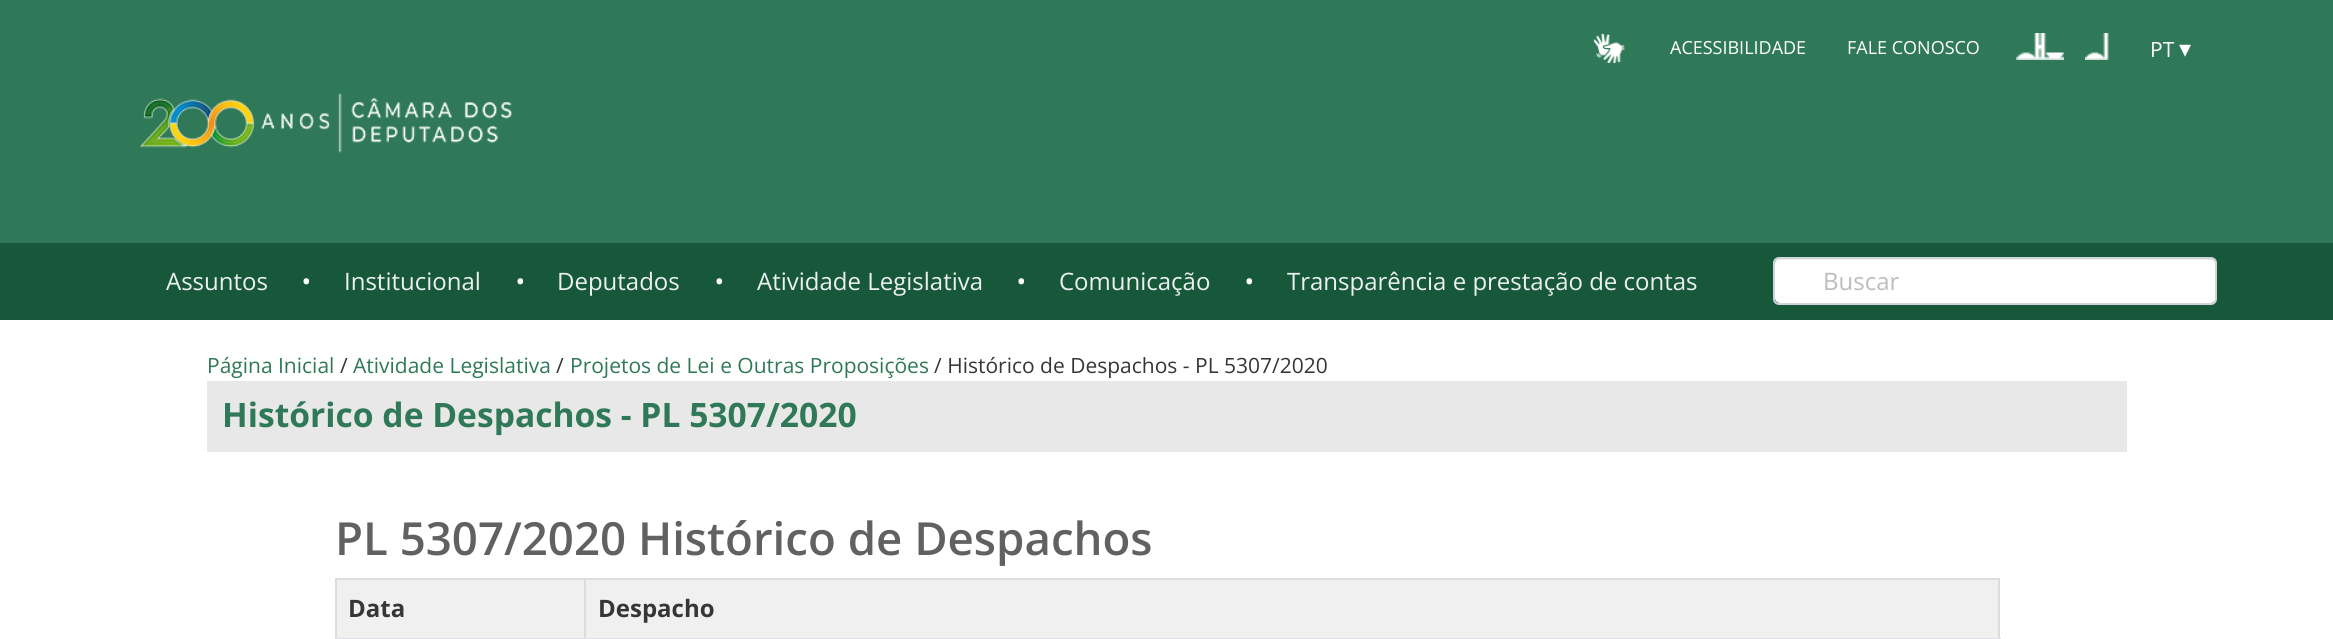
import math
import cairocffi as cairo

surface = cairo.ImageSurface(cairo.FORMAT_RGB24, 2333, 639)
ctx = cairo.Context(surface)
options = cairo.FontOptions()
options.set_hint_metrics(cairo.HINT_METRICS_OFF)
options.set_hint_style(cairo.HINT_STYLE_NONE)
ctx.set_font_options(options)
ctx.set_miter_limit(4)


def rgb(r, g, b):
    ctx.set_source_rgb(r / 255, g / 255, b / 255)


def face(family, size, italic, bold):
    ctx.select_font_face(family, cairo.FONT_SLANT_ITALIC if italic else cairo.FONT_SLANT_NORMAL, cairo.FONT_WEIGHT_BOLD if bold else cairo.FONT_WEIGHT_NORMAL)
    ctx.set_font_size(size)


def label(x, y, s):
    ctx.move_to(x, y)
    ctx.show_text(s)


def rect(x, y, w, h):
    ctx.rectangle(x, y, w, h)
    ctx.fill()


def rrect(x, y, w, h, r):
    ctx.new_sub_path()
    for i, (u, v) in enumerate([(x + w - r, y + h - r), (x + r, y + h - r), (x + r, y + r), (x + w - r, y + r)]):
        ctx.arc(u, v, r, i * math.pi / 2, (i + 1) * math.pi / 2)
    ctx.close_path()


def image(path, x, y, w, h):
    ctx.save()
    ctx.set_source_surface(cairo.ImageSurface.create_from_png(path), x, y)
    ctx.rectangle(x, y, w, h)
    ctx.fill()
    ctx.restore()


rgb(255, 255, 255)
ctx.paint()
rgb(47, 121, 88)
rect(0, 0, 2333, 243)
image('image0.png', 1593, 33, 32, 30)
face('Open Sans', 18, 0, 0)
rgb(255, 255, 255)
label(1670, 54, 'ACESSIBILIDADE')
label(1847, 54, 'FALE CONOSCO')
image('image1.png', 2016, 33, 48, 27)
image('image2.png', 2085, 33, 24, 27)
face('Open Sans', 21, 0, 0)
label(2150, 57, 'PT')
face('DejaVu Sans', 24, 0, 0)
label(2179, 57, '▾')
image('image3.png', 140, 93, 372, 60)
rgb(23, 88, 59)
rect(0, 243, 2333, 77)
face('Open Sans', 24, 0, 0)
rgb(236, 240, 241)
label(166, 290, 'Assuntos')
face('Open Sans', 48, 0, 0)
rgb(255, 255, 255)
label(300, 298, '·')
face('Open Sans', 24, 0, 0)
rgb(236, 240, 241)
label(344, 290, 'Institucional')
face('Open Sans', 48, 0, 0)
rgb(255, 255, 255)
label(514, 298, '·')
face('Open Sans', 24, 0, 0)
rgb(236, 240, 241)
label(557, 290, 'Deputados')
face('Open Sans', 48, 0, 0)
rgb(255, 255, 255)
label(713, 298, '·')
face('Open Sans', 24, 0, 0)
rgb(236, 240, 241)
label(757, 290, 'Atividade Legislativa')
face('Open Sans', 48, 0, 0)
rgb(255, 255, 255)
label(1015, 298, '·')
face('Open Sans', 24, 0, 0)
rgb(236, 240, 241)
label(1059, 290, 'Comunicação')
face('Open Sans', 48, 0, 0)
rgb(255, 255, 255)
label(1243, 298, '·')
face('Open Sans', 24, 0, 0)
rgb(236, 240, 241)
label(1287, 290, 'Transparência e prestação de contas')
rgb(255, 255, 255)
rrect(1775, 258, 441, 45, 5)
ctx.fill()
ctx.set_source_rgba(0, 0, 0, 0.07)
ctx.new_path()
ctx.move_to(1779, 260)
ctx.line_to(2211, 260)
ctx.curve_to(2213, 260, 2216, 262, 2216, 264)
ctx.line_to(2216, 263)
ctx.curve_to(2216, 260, 2214, 258, 2211, 258)
ctx.line_to(1780, 258)
ctx.curve_to(1778, 258, 1776, 260, 1775, 262)
ctx.curve_to(1776, 261, 1778, 260, 1779, 260)
ctx.close_path()
ctx.fill()
rrect(1774, 258, 442, 46, 5)
rgb(206, 212, 218)
ctx.stroke()
rgb(189, 189, 189)
label(1823, 290, 'Buscar')
face('Open Sans', 21, 0, 0)
rgb(47, 121, 88)
label(207, 373, 'Página Inicial')
rgb(54, 54, 54)
label(340, 373, '/')
rgb(47, 121, 88)
label(353, 373, 'Atividade Legislativa')
rgb(54, 54, 54)
label(556, 373, '/')
rgb(47, 121, 88)
label(570, 373, 'Projetos de Lei e Outras Proposições')
rgb(54, 54, 54)
label(934, 373, '/ Histórico de Despachos - PL 5307/2020')
rgb(232, 232, 232)
rect(207, 381, 1920, 71)
face('Open Sans', 33.6, 0, 1)
rgb(47, 121, 88)
label(222, 427, 'Histórico de Despachos - PL 5307/2020')
face('Open Sans SemiBold', 45.6, 0, 0)
rgb(97, 97, 97)
label(335, 555, 'PL 5307/2020 Histórico de Despachos')
rgb(240, 240, 240)
rect(337, 580, 1661, 58)
rgb(221, 221, 221)
rect(584, 578, 1416, 2)
rect(584, 578, 2, 61)
rect(335, 578, 250, 2)
rect(335, 578, 2, 61)
face('Open Sans', 24, 0, 1)
rgb(54, 54, 54)
label(348, 617, 'Data')
rgb(221, 221, 221)
rect(1998, 578, 2, 61)
rgb(54, 54, 54)
label(598, 617, 'Despacho')
rgb(222, 226, 230)
rect(335, 638, 1666, 1)
surface.write_to_png('render.png')
